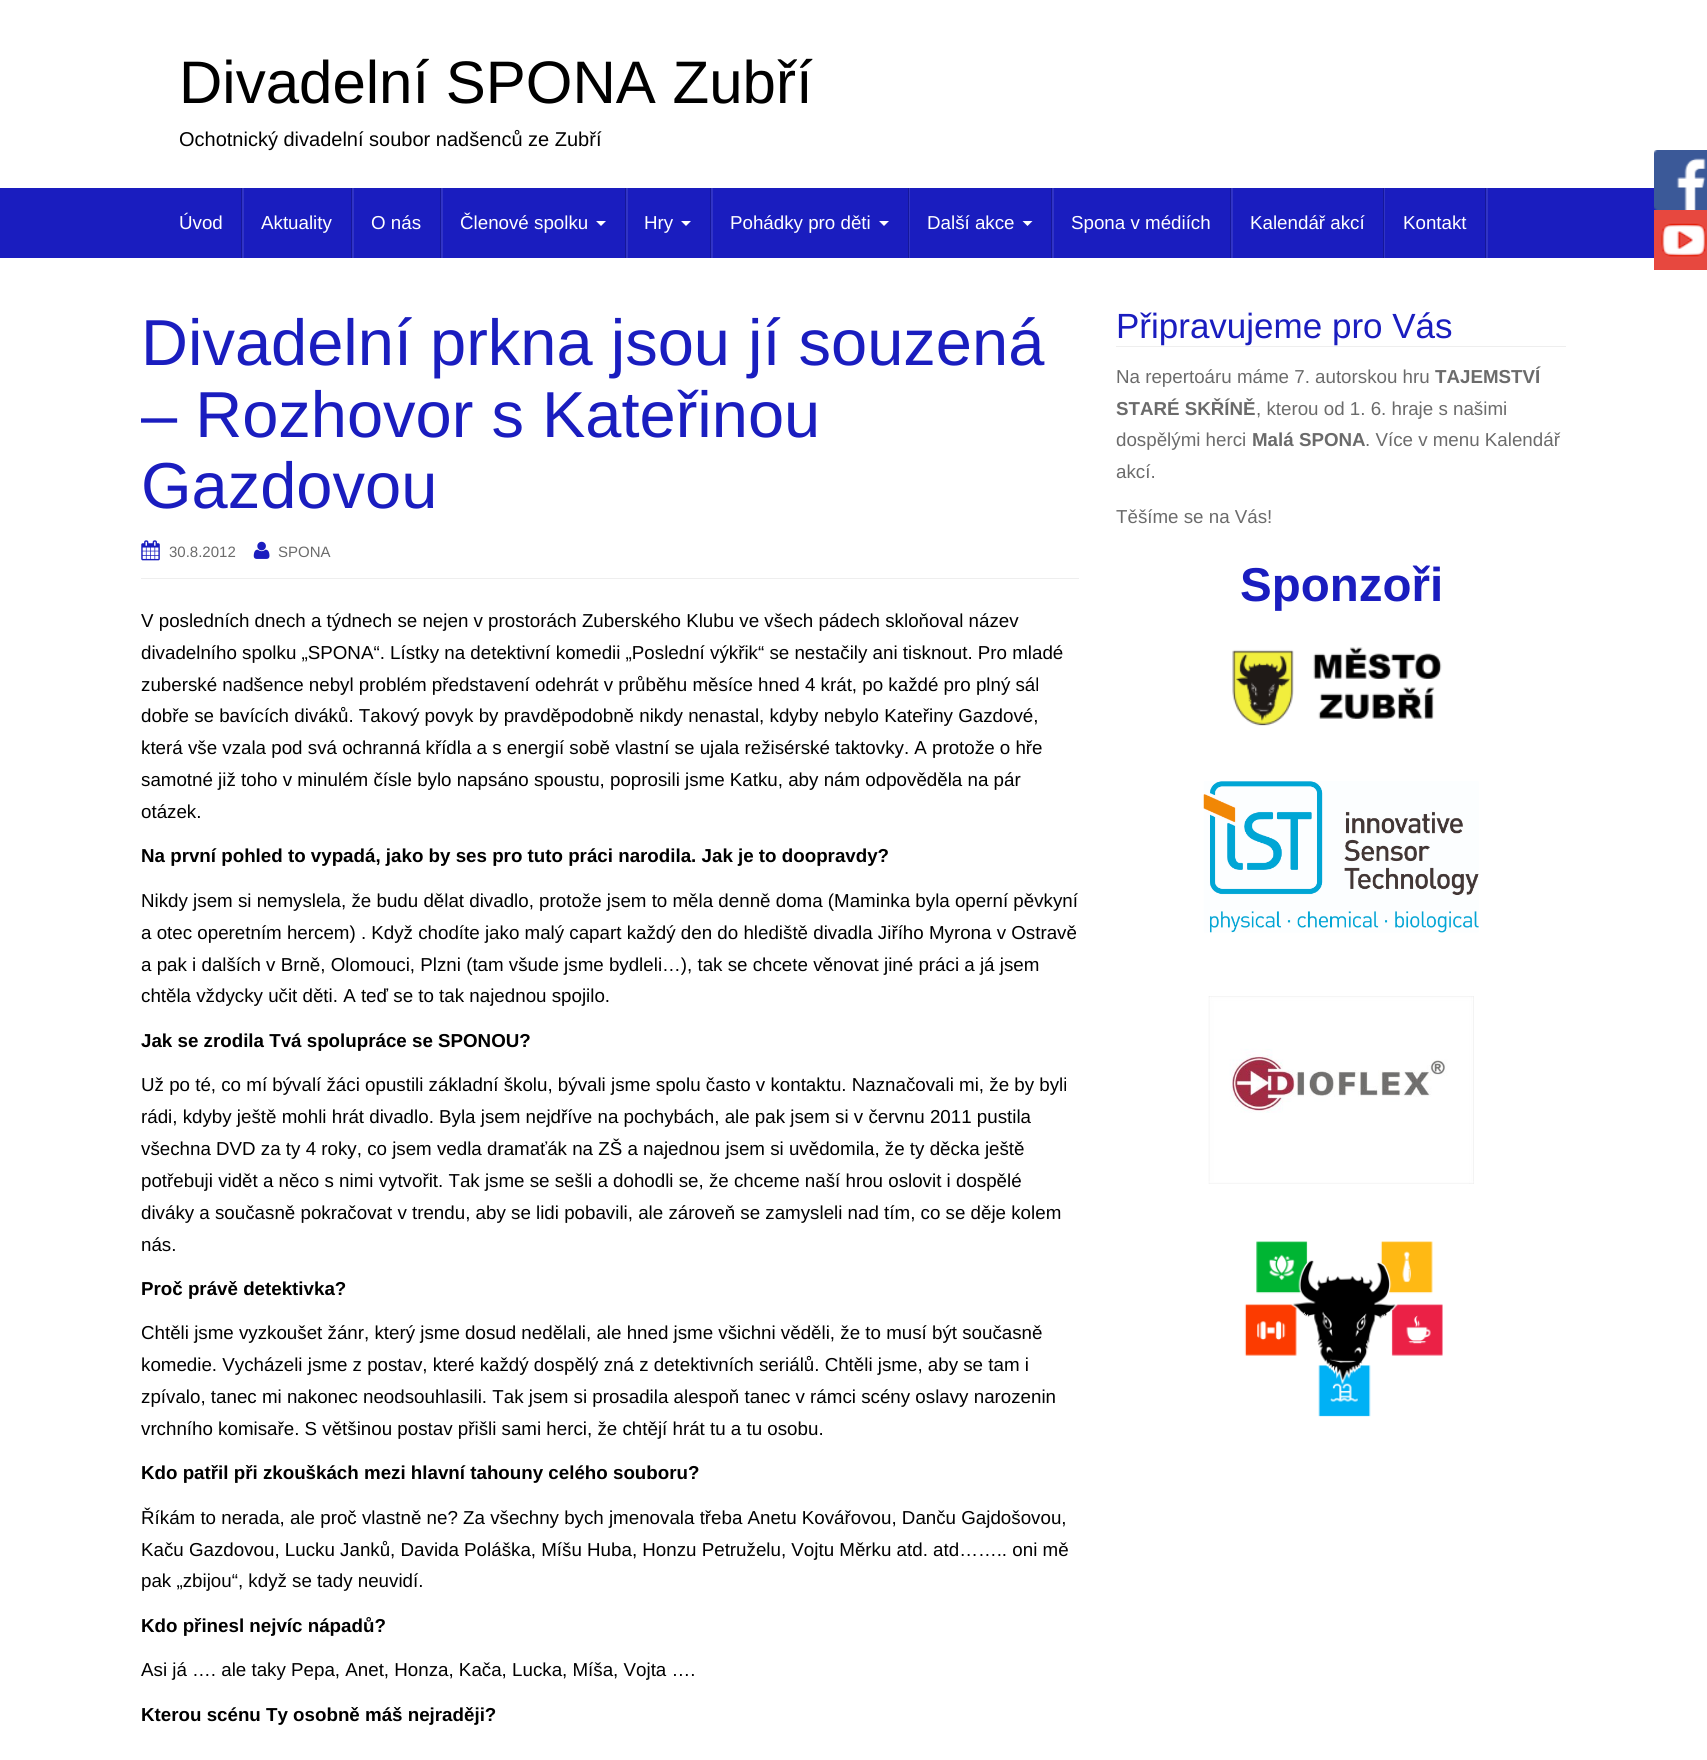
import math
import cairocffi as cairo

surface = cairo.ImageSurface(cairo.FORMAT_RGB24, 1707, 1760)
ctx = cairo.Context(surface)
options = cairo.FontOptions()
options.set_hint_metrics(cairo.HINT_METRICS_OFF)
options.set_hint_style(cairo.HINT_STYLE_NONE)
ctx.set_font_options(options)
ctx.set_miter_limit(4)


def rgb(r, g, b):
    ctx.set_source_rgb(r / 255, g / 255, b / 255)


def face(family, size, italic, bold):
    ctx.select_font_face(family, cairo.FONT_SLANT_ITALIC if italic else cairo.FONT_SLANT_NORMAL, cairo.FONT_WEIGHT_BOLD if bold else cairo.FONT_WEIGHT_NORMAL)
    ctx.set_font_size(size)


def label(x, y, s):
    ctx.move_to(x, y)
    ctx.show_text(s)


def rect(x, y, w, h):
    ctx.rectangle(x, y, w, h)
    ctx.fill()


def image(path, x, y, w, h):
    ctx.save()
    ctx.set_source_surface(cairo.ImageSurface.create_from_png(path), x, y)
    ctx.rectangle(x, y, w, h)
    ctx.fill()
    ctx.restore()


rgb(255, 255, 255)
ctx.paint()
face('Liberation Sans', 60, 0, 0)
rgb(0, 0, 0)
label(179, 103, 'Divadelní SPONA Zubří')
face('Liberation Sans', 20, 0, 0)
label(179, 146, 'Ochotnický divadelní soubor nadšenců ze Zubří')
rgb(26, 29, 191)
rect(0, 188, 1658, 70)
rgb(49, 52, 197)
ctx.new_path()
ctx.move_to(161, 258)
ctx.line_to(244, 258)
ctx.line_to(244, 188)
ctx.line_to(242, 188)
ctx.line_to(242, 258)
ctx.close_path()
ctx.fill()
rgb(21, 23, 153)
rect(241, 188, 1, 70)
face('Liberation Sans', 18.75, 0, 0)
rgb(255, 255, 255)
label(179, 229, 'Úvod')
rgb(49, 52, 197)
ctx.new_path()
ctx.move_to(244, 258)
ctx.line_to(354, 258)
ctx.line_to(354, 188)
ctx.line_to(352, 188)
ctx.line_to(352, 258)
ctx.close_path()
ctx.fill()
rgb(21, 23, 153)
rect(351, 188, 1, 70)
rgb(255, 255, 255)
label(261, 229, 'Aktuality')
rgb(49, 52, 197)
ctx.new_path()
ctx.move_to(354, 258)
ctx.line_to(443, 258)
ctx.line_to(443, 188)
ctx.line_to(441, 188)
ctx.line_to(441, 258)
ctx.close_path()
ctx.fill()
rgb(21, 23, 153)
rect(440, 188, 1, 70)
rgb(255, 255, 255)
label(371, 229, 'O nás')
rgb(49, 52, 197)
ctx.new_path()
ctx.move_to(443, 258)
ctx.line_to(628, 258)
ctx.line_to(628, 188)
ctx.line_to(626, 188)
ctx.line_to(626, 258)
ctx.close_path()
ctx.fill()
rgb(21, 23, 153)
rect(625, 188, 1, 70)
rgb(255, 255, 255)
label(460, 229, 'Členové spolku')
ctx.new_path()
ctx.move_to(596, 221)
ctx.line_to(606, 221)
ctx.line_to(601, 226)
ctx.close_path()
ctx.fill()
rgb(49, 52, 197)
ctx.new_path()
ctx.move_to(628, 258)
ctx.line_to(713, 258)
ctx.line_to(713, 188)
ctx.line_to(711, 188)
ctx.line_to(711, 258)
ctx.close_path()
ctx.fill()
rgb(21, 23, 153)
rect(710, 188, 1, 70)
rgb(255, 255, 255)
label(644, 229, 'Hry')
ctx.new_path()
ctx.move_to(681, 221)
ctx.line_to(691, 221)
ctx.line_to(686, 226)
ctx.close_path()
ctx.fill()
rgb(49, 52, 197)
ctx.new_path()
ctx.move_to(713, 258)
ctx.line_to(910, 258)
ctx.line_to(910, 188)
ctx.line_to(909, 188)
ctx.line_to(909, 258)
ctx.close_path()
ctx.fill()
rgb(21, 23, 153)
rect(908, 188, 1, 70)
rgb(255, 255, 255)
label(730, 229, 'Pohádky pro děti')
ctx.new_path()
ctx.move_to(879, 221)
ctx.line_to(889, 221)
ctx.line_to(884, 226)
ctx.close_path()
ctx.fill()
rgb(49, 52, 197)
ctx.new_path()
ctx.move_to(910, 258)
ctx.line_to(1054, 258)
ctx.line_to(1054, 188)
ctx.line_to(1052, 188)
ctx.line_to(1052, 258)
ctx.close_path()
ctx.fill()
rgb(21, 23, 153)
rect(1051, 188, 1, 70)
rgb(255, 255, 255)
label(927, 229, 'Další akce')
ctx.new_path()
ctx.move_to(1022.5, 221)
ctx.line_to(1032.5, 221)
ctx.line_to(1027.5, 226)
ctx.close_path()
ctx.fill()
rgb(49, 52, 197)
ctx.new_path()
ctx.move_to(1054, 258)
ctx.line_to(1233, 258)
ctx.line_to(1233, 188)
ctx.line_to(1231, 188)
ctx.line_to(1231, 258)
ctx.close_path()
ctx.fill()
rgb(21, 23, 153)
rect(1230, 188, 1, 70)
rgb(255, 255, 255)
label(1071, 229, 'Spona v médiích')
rgb(49, 52, 197)
ctx.new_path()
ctx.move_to(1233, 258)
ctx.line_to(1385, 258)
ctx.line_to(1385, 188)
ctx.line_to(1384, 188)
ctx.line_to(1384, 258)
ctx.close_path()
ctx.fill()
rgb(21, 23, 153)
rect(1383, 188, 1, 70)
rgb(255, 255, 255)
label(1250, 229, 'Kalendář akcí')
rgb(49, 52, 197)
ctx.new_path()
ctx.move_to(1385, 258)
ctx.line_to(1488, 258)
ctx.line_to(1488, 188)
ctx.line_to(1486, 188)
ctx.line_to(1486, 258)
ctx.close_path()
ctx.fill()
rgb(21, 23, 153)
rect(1485, 188, 1, 70)
rgb(255, 255, 255)
label(1403, 229, 'Kontakt')
rgb(238, 238, 238)
rect(141, 578, 938, 1)
face('Liberation Sans', 65, 0, 0)
rgb(26, 29, 191)
label(141, 365, 'Divadelní prkna jsou jí souzená')
label(141, 437, '– Rozhovor s Kateřinou')
label(141, 508, 'Gazdovou')
image('image0.png', 141, 540, 19, 21)
face('Liberation Sans', 15, 0, 0)
rgb(107, 107, 107)
label(169, 557, '30.8.2012')
image('image1.png', 253, 541, 17, 18)
label(278, 557, 'SPONA')
face('Liberation Sans', 18.75, 0, 0)
rgb(0, 0, 0)
label(141, 627, 'V posledních dnech a týdnech se nejen v prostorách Zuberského Klubu ve všech pádech skloňoval název')
label(141, 659, 'divadelního spolku „SPONA“. Lístky na detektivní komedii „Poslední výkřik“ se nestačily ani tisknout. Pro mladé')
label(141, 691, 'zuberské nadšence nebyl problém představení odehrát v průběhu měsíce hned 4 krát, po každé pro plný sál')
label(141, 722, 'dobře se bavících diváků. Takový povyk by pravděpodobně nikdy nenastal, kdyby nebylo Kateřiny Gazdové,')
label(141, 754, 'která vše vzala pod svá ochranná křídla a s energií sobě vlastní se ujala režisérské taktovky. A protože o hře')
label(141, 786, 'samotné již toho v minulém čísle bylo napsáno spoustu, poprosili jsme Katku, aby nám odpověděla na pár')
label(141, 818, 'otázek.')
face('Liberation Sans', 18.75, 0, 1)
label(141, 862, 'Na první pohled to vypadá, jako by ses pro tuto práci narodila. Jak je to doopravdy?')
face('Liberation Sans', 18.75, 0, 0)
label(141, 907, 'Nikdy jsem si nemyslela, že budu dělat divadlo, protože jsem to měla denně doma (Maminka byla operní pěvkyní')
label(141, 939, 'a otec operetním hercem) . Když chodíte jako malý capart každý den do hlediště divadla Jiřího Myrona v Ostravě')
label(141, 971, 'a pak i dalších v Brně, Olomouci, Plzni (tam všude jsme bydleli…), tak se chcete věnovat jiné práci a já jsem')
label(141, 1002, 'chtěla vždycky učit děti. A teď se to tak najednou spojilo.')
face('Liberation Sans', 18.75, 0, 1)
label(141, 1047, 'Jak se zrodila Tvá spolupráce se SPONOU?')
face('Liberation Sans', 18.75, 0, 0)
label(141, 1091, 'Už po té, co mí bývalí žáci opustili základní školu, bývali jsme spolu často v kontaktu. Naznačovali mi, že by byli')
label(141, 1123, 'rádi, kdyby ještě mohli hrát divadlo. Byla jsem nejdříve na pochybách, ale pak jsem si v červnu 2011 pustila')
label(141, 1155, 'všechna DVD za ty 4 roky, co jsem vedla dramaťák na ZŠ a najednou jsem si uvědomila, že ty děcka ještě')
label(141, 1187, 'potřebuji vidět a něco s nimi vytvořit. Tak jsme se sešli a dohodli se, že chceme naší hrou oslovit i dospělé')
label(141, 1219, 'diváky a současně pokračovat v trendu, aby se lidi pobavili, ale zároveň se zamysleli nad tím, co se děje kolem')
label(141, 1251, 'nás.')
face('Liberation Sans', 18.75, 0, 1)
label(141, 1295, 'Proč právě detektivka?')
face('Liberation Sans', 18.75, 0, 0)
label(141, 1339, 'Chtěli jsme vyzkoušet žánr, který jsme dosud nedělali, ale hned jsme všichni věděli, že to musí být současně')
label(141, 1371, 'komedie. Vycházeli jsme z postav, které každý dospělý zná z detektivních seriálů. Chtěli jsme, aby se tam i')
label(141, 1403, 'zpívalo, tanec mi nakonec neodsouhlasili. Tak jsem si prosadila alespoň tanec v rámci scény oslavy narozenin')
label(141, 1435, 'vrchního komisaře. S většinou postav přišli sami herci, že chtějí hrát tu a tu osobu.')
face('Liberation Sans', 18.75, 0, 1)
label(141, 1479, 'Kdo patřil při zkouškách mezi hlavní tahouny celého souboru?')
face('Liberation Sans', 18.75, 0, 0)
label(141, 1524, 'Říkám to nerada, ale proč vlastně ne? Za všechny bych jmenovala třeba Anetu Kovářovou, Danču Gajdošovou,')
label(141, 1556, 'Kaču Gazdovou, Lucku Janků, Davida Poláška, Míšu Huba, Honzu Petruželu, Vojtu Měrku atd. atd…….. oni mě')
label(141, 1587, 'pak „zbijou“, když se tady neuvidí.')
face('Liberation Sans', 18.75, 0, 1)
label(141, 1632, 'Kdo přinesl nejvíc nápadů?')
face('Liberation Sans', 18.75, 0, 0)
label(141, 1676, 'Asi já …. ale taky Pepa, Anet, Honza, Kača, Lucka, Míša, Vojta ….')
face('Liberation Sans', 18.75, 0, 1)
label(141, 1721, 'Kterou scénu Ty osobně máš nejraději?')
rgb(238, 238, 238)
rect(1116, 346, 450, 1)
face('Liberation Sans', 35, 0, 0)
rgb(26, 29, 191)
label(1116, 338, 'Připravujeme pro Vás')
face('Liberation Sans', 18.75, 0, 0)
rgb(107, 107, 107)
label(1116, 383, 'Na repertoáru máme 7. autorskou hru')
face('Liberation Sans', 18.75, 0, 1)
label(1435, 383, 'TAJEMSTVÍ')
label(1116, 415, 'STARÉ SKŘÍNĚ')
face('Liberation Sans', 18.75, 0, 0)
label(1256, 415, ', kterou od 1. 6. hraje s našimi')
label(1116, 446, 'dospělými herci')
face('Liberation Sans', 18.75, 0, 1)
label(1252, 446, 'Malá SPONA')
face('Liberation Sans', 18.75, 0, 0)
label(1365, 446, '. Více v menu Kalendář')
label(1116, 478, 'akcí.')
label(1116, 523, 'Těšíme se na Vás!')
face('Liberation Sans', 47.5, 0, 1)
rgb(26, 29, 191)
label(1240, 601, 'Sponzoři')
image('image2.png', 1232, 647, 210, 79)
image('image3.png', 1203, 781, 276, 152)
image('image4.png', 1208, 996, 266, 188)
image('image5.png', 1244, 1241, 199, 176)
image('image6.png', 1654, 150, 53, 60)
image('image7.png', 1654, 210, 53, 60)
surface.write_to_png('render.png')
